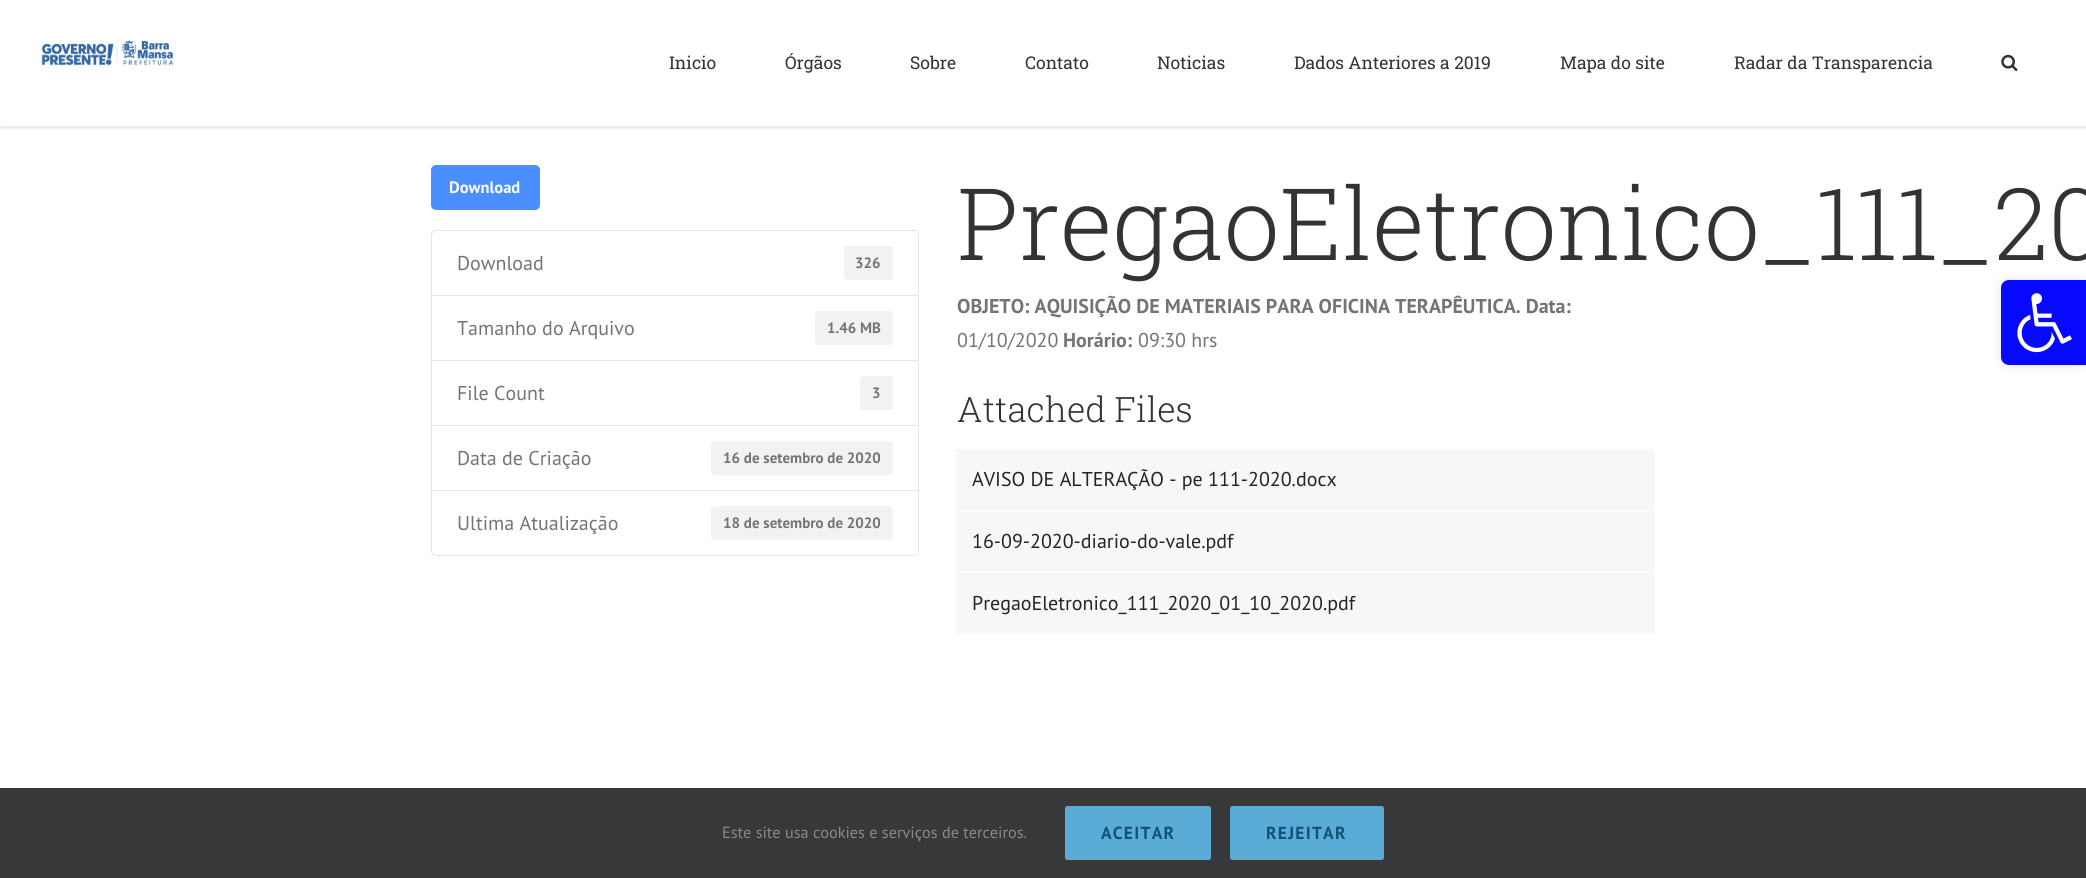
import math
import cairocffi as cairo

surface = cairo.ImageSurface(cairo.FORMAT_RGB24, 2086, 878)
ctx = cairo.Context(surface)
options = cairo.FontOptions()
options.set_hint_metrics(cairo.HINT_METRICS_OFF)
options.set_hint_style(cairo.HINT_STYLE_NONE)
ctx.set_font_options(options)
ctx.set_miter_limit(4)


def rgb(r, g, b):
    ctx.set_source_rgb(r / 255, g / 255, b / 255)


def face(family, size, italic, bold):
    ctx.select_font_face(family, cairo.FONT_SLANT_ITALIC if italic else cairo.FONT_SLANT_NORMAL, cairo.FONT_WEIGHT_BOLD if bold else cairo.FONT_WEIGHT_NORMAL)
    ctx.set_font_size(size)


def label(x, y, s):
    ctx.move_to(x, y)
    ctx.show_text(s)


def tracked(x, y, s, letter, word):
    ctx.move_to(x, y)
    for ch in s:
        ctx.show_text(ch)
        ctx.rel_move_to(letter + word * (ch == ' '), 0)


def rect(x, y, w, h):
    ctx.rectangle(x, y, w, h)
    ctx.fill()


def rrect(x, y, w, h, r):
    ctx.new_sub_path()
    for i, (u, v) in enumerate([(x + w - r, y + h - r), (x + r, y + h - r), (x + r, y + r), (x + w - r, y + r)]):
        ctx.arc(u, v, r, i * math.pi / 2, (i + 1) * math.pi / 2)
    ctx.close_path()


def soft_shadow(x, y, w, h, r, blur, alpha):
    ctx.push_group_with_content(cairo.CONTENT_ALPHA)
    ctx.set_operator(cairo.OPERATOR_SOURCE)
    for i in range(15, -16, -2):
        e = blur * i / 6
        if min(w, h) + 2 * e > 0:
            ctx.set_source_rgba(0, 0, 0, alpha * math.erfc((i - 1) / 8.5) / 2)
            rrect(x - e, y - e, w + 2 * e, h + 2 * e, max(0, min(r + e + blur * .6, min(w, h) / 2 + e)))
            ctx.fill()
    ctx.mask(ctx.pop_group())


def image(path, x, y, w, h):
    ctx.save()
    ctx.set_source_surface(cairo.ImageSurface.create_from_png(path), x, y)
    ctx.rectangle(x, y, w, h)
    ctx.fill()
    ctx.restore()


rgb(255, 255, 255)
ctx.paint()
ctx.save()
ctx.rectangle(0, 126, 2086, 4)
ctx.clip()
rgb(0, 0, 0)
soft_shadow(0, 1, 2086, 127, 0, 2, 0.12)
ctx.restore()
image('image0.png', 41, 40, 133, 26)
face('Roboto Slab', 17.5, 0, 0)
rgb(51, 51, 51)
label(669, 69, 'Inicio')
label(785, 69, 'Órgãos')
label(910, 69, 'Sobre')
label(1025, 69, 'Contato')
label(1157, 69, 'Noticias')
label(1294, 69, 'Dados Anteriores a 2019')
label(1560, 69, 'Mapa do site')
label(1734, 69, 'Radar da Transparencia')
image('image1.png', 2001, 54, 17, 18)
rgb(74, 142, 255)
rrect(431, 165, 109, 45, 5)
ctx.fill()
face('PT Sans', 16.5, 0, 1)
rgb(255, 255, 255)
label(449, 193, 'Download')
ctx.new_path()
ctx.move_to(436, 230.5)
ctx.line_to(914, 230.5)
ctx.curve_to(916.5, 230.5, 918.5, 232.5, 918.5, 235)
ctx.line_to(918.5, 295.5)
ctx.line_to(431.5, 295.5)
ctx.line_to(431.5, 235)
ctx.curve_to(431.5, 232.5, 433.5, 230.5, 436, 230.5)
ctx.close_path()
rgb(229, 229, 229)
ctx.set_line_width(1)
ctx.stroke()
face('PT Sans', 20, 0, 0)
rgb(116, 116, 116)
label(457, 270, 'Download')
rgb(242, 242, 242)
rrect(844, 246, 49, 34, 4)
ctx.fill()
face('PT Sans', 15, 0, 1)
rgb(116, 116, 116)
label(855, 268, '326')
ctx.rectangle(431.5, 295.5, 487, 65)
rgb(229, 229, 229)
ctx.stroke()
face('PT Sans', 20, 0, 0)
rgb(116, 116, 116)
label(457, 335, 'Tamanho do Arquivo')
rgb(242, 242, 242)
rrect(815, 311, 78, 34, 4)
ctx.fill()
face('PT Sans', 15, 0, 1)
rgb(116, 116, 116)
label(827, 333, '1.46 MB')
ctx.rectangle(431.5, 360.5, 487, 65)
rgb(229, 229, 229)
ctx.stroke()
face('PT Sans', 20, 0, 0)
rgb(116, 116, 116)
label(457, 400, 'File Count')
rgb(242, 242, 242)
rrect(860, 376, 33, 34, 4)
ctx.fill()
face('PT Sans', 15, 0, 1)
rgb(116, 116, 116)
label(872, 398, '3')
ctx.rectangle(431.5, 425.5, 487, 65)
rgb(229, 229, 229)
ctx.stroke()
face('PT Sans', 20, 0, 0)
rgb(116, 116, 116)
label(457, 465, 'Data de Criação')
rgb(242, 242, 242)
rrect(711, 441, 182, 34, 4)
ctx.fill()
face('PT Sans', 15, 0, 1)
rgb(116, 116, 116)
label(723, 463, '16 de setembro de 2020')
rgb(255, 255, 255)
ctx.new_path()
ctx.move_to(431.5, 490.5)
ctx.line_to(918.5, 490.5)
ctx.line_to(918.5, 551)
ctx.curve_to(918.5, 553.5, 916.5, 555.5, 914, 555.5)
ctx.line_to(436, 555.5)
ctx.curve_to(433.5, 555.5, 431.5, 553.5, 431.5, 551)
ctx.close_path()
ctx.fill_preserve()
rgb(229, 229, 229)
ctx.stroke()
face('PT Sans', 20, 0, 0)
rgb(116, 116, 116)
label(457, 530, 'Ultima Atualização')
rgb(242, 242, 242)
rrect(711, 506, 182, 34, 4)
ctx.fill()
face('PT Sans', 15, 0, 1)
rgb(116, 116, 116)
label(723, 528, '18 de setembro de 2020')
face('Roboto Slab Light', 100, 0, 0)
rgb(51, 51, 51)
label(957, 260, 'PregaoEletronico_111_20')
face('PT Sans', 20, 0, 1)
rgb(116, 116, 116)
label(957, 313, 'OBJETO: AQUISIÇÃO DE MATERIAIS PARA OFICINA TERAPÊUTICA. Data:')
face('PT Sans', 20, 0, 0)
label(957, 347, '01/10/2020')
face('PT Sans', 20, 0, 1)
label(1063, 347, 'Horário:')
face('PT Sans', 20, 0, 0)
label(1138, 347, '09:30 hrs')
face('Roboto Slab Light', 35, 0, 0)
rgb(51, 51, 51)
label(957, 422, 'Attached Files')
rgb(247, 247, 247)
rect(956, 449, 699, 61)
face('PT Sans', 20, 0, 0)
rgb(33, 37, 41)
label(972, 486, 'AVISO DE ALTERAÇÃO - pe 111-2020.docx')
rgb(247, 247, 247)
rect(956, 511, 699, 62)
rgb(33, 37, 41)
label(972, 548, '16-09-2020-diario-do-vale.pdf')
rgb(255, 255, 255)
rect(956, 571, 700, 1)
rgb(247, 247, 247)
rect(956, 573, 699, 61)
rgb(33, 37, 41)
label(972, 610, 'PregaoEletronico_111_2020_01_10_2020.pdf')
rgb(0, 0, 0)
soft_shadow(2001, 280, 85, 85, 8, 6, 0.1)
rgb(7, 8, 255)
ctx.new_path()
ctx.move_to(2009, 280)
ctx.line_to(2086, 280)
ctx.line_to(2086, 365)
ctx.line_to(2009, 365)
ctx.curve_to(2004.5, 365, 2001, 361.5, 2001, 357)
ctx.line_to(2001, 288)
ctx.curve_to(2001, 283.5, 2004.5, 280, 2009, 280)
ctx.close_path()
ctx.fill()
image('image2.png', 2017, 293, 55, 60)
rgb(54, 56, 57)
rect(0, 788, 2086, 90)
face('PT Sans', 16.25, 0, 0)
rgb(140, 137, 137)
label(722, 838, 'Este site usa cookies e serviços de terceiros.')
rgb(90, 171, 214)
rrect(1065, 806, 146, 54, 2.5)
ctx.fill()
face('PT Sans', 17.5, 0, 1)
rgb(16, 83, 120)
tracked(1101, 839, 'ACEITAR', 1.25, 0)
rgb(90, 171, 214)
rrect(1230, 806, 154, 54, 2.5)
ctx.fill()
rgb(16, 83, 120)
tracked(1266, 839, 'REJEITAR', 1.25, 0)
surface.write_to_png('render.png')
